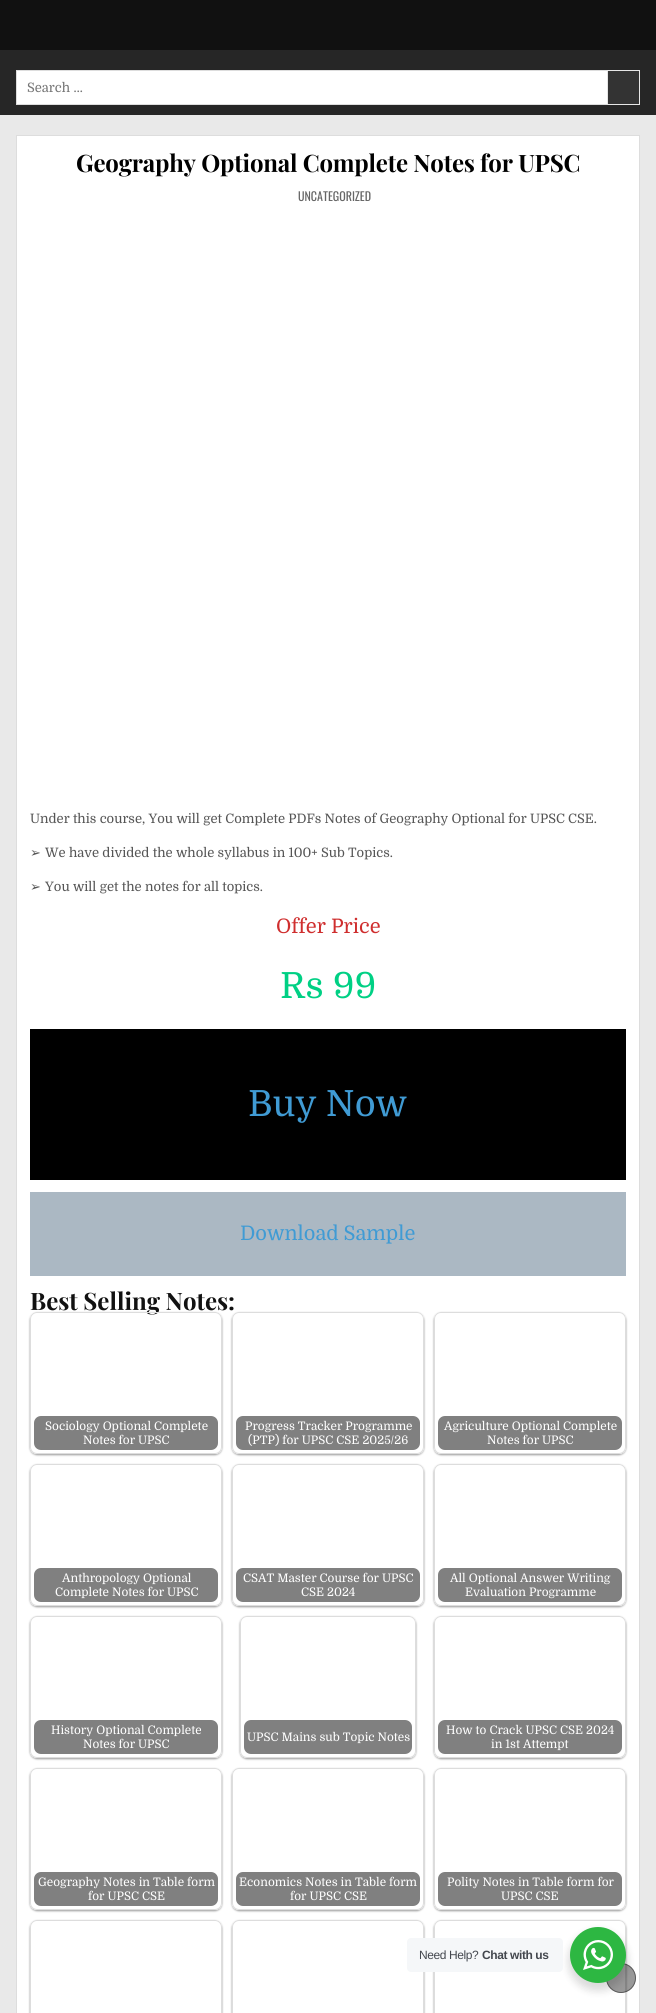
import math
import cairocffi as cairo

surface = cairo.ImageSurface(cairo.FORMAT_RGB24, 656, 2013)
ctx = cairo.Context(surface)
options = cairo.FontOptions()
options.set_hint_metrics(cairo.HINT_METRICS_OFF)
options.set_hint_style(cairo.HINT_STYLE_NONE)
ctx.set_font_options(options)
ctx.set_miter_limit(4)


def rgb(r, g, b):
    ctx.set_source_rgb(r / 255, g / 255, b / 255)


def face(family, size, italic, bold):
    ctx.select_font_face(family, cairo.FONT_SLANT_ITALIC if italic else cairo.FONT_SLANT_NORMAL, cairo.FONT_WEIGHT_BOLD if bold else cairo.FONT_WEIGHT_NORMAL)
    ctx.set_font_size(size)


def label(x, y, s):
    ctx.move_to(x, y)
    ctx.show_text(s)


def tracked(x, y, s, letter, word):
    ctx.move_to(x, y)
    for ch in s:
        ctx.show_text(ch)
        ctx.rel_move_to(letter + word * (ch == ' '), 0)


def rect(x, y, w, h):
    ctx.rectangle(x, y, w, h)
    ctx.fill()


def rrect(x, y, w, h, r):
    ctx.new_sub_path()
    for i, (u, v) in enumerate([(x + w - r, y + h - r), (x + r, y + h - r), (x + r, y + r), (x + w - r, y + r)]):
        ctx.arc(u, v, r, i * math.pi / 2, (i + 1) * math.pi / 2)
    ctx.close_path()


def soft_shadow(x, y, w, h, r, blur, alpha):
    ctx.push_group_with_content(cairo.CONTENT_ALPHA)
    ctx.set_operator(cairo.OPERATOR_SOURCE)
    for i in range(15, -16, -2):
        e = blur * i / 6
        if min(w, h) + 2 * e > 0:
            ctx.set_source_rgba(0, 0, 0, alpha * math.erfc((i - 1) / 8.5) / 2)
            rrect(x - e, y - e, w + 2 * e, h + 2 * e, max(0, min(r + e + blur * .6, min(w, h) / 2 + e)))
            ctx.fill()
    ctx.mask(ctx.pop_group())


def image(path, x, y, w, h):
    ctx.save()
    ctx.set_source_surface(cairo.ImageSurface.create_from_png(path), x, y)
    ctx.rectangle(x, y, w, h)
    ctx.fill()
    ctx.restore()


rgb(233, 233, 233)
ctx.paint()
rgb(17, 17, 17)
rect(0, 0, 656, 50)
rgb(38, 38, 38)
rect(0, 50, 656, 65)
rgb(255, 255, 255)
rect(17, 71, 590, 33)
ctx.rectangle(16.5, 70.5, 623, 34)
rgb(221, 221, 221)
ctx.set_line_width(1)
ctx.stroke()
face('Domine', 13, 0, 0)
rgb(117, 117, 117)
label(27, 92, 'Search …')
rgb(51, 51, 51)
ctx.rectangle(607.5, 70.5, 32, 34)
ctx.fill_preserve()
rgb(230, 230, 230)
ctx.stroke()
rgb(255, 255, 255)
ctx.rectangle(16.5, 135.5, 623, 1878)
ctx.fill_preserve()
rgb(221, 221, 221)
ctx.stroke()
face('Playfair Display', 24, 0, 1)
rgb(0, 0, 0)
tracked(76, 172, 'Geography Optional Complete Notes for UPSC', -0.2, 0)
face('Oswald', 12, 0, 0)
rgb(102, 102, 102)
label(298, 201, 'UNCATEGORIZED')
face('Domine', 13, 0, 0)
rgb(85, 85, 85)
label(30, 823, 'Under this course, You will get Complete PDFs Notes of Geography Optional for UPSC CSE.')
face('DejaVu Sans', 13, 0, 0)
label(30, 857, '➢')
face('Domine', 13, 0, 0)
label(45, 857, 'We have divided the whole syllabus in 100+ Sub Topics.')
face('DejaVu Sans', 13, 0, 0)
label(30, 891, '➢')
face('Domine', 13, 0, 0)
label(45, 891, 'You will get the notes for all topics.')
face('Domine', 20, 0, 0)
rgb(207, 46, 46)
label(276, 933, 'Offer Price')
face('Domine', 36, 0, 0)
rgb(0, 208, 132)
label(280, 998, 'Rs 99')
rgb(0, 0, 0)
rect(30, 1029, 596, 151)
rgb(64, 155, 212)
label(248, 1116, 'Buy Now')
rgb(171, 184, 195)
rect(30, 1192, 596, 84)
face('Domine', 20, 0, 0)
rgb(64, 155, 212)
label(240, 1240, 'Download Sample')
face('Playfair Display', 24, 0, 1)
rgb(17, 17, 17)
label(30, 1310, 'Best Selling Notes:')
ctx.save()
ctx.set_fill_rule(cairo.FILL_RULE_EVEN_ODD)
ctx.new_path()
ctx.move_to(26, 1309)
ctx.line_to(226, 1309)
ctx.line_to(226, 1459)
ctx.line_to(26, 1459)
ctx.close_path()
ctx.move_to(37, 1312)
ctx.line_to(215, 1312)
ctx.curve_to(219, 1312, 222, 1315, 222, 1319)
ctx.line_to(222, 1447)
ctx.curve_to(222, 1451, 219, 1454, 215, 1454)
ctx.line_to(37, 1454)
ctx.curve_to(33, 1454, 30, 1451, 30, 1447)
ctx.line_to(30, 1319)
ctx.curve_to(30, 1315, 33, 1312, 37, 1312)
ctx.close_path()
ctx.clip()
rgb(0, 0, 0)
soft_shadow(30, 1313, 192, 142, 7, 1, 0.4)
ctx.restore()
rrect(30.5, 1312.5, 191, 141, 6.5)
rgb(221, 221, 221)
ctx.stroke()
rgb(128, 128, 128)
rrect(34, 1416, 184, 34, 7)
ctx.fill()
face('Domine', 11.75, 0, 0)
rgb(255, 255, 255)
label(45, 1430, 'Sociology Optional Complete')
label(83, 1444, 'Notes for UPSC')
ctx.save()
ctx.set_fill_rule(cairo.FILL_RULE_EVEN_ODD)
ctx.new_path()
ctx.move_to(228, 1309)
ctx.line_to(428, 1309)
ctx.line_to(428, 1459)
ctx.line_to(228, 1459)
ctx.close_path()
ctx.move_to(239, 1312)
ctx.line_to(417, 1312)
ctx.curve_to(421, 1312, 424, 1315, 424, 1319)
ctx.line_to(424, 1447)
ctx.curve_to(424, 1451, 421, 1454, 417, 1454)
ctx.line_to(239, 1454)
ctx.curve_to(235, 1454, 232, 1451, 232, 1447)
ctx.line_to(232, 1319)
ctx.curve_to(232, 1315, 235, 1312, 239, 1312)
ctx.close_path()
ctx.clip()
rgb(0, 0, 0)
soft_shadow(232, 1313, 192, 142, 7, 1, 0.4)
ctx.restore()
rrect(232.5, 1312.5, 191, 141, 6.5)
rgb(221, 221, 221)
ctx.stroke()
rgb(128, 128, 128)
rrect(236, 1416, 184, 34, 7)
ctx.fill()
rgb(255, 255, 255)
label(245, 1430, 'Progress Tracker Programme')
label(248, 1444, '(PTP) for UPSC CSE 2025/26')
ctx.save()
ctx.set_fill_rule(cairo.FILL_RULE_EVEN_ODD)
ctx.new_path()
ctx.move_to(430, 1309)
ctx.line_to(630, 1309)
ctx.line_to(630, 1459)
ctx.line_to(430, 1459)
ctx.close_path()
ctx.move_to(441, 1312)
ctx.line_to(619, 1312)
ctx.curve_to(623, 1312, 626, 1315, 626, 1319)
ctx.line_to(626, 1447)
ctx.curve_to(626, 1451, 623, 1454, 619, 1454)
ctx.line_to(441, 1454)
ctx.curve_to(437, 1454, 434, 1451, 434, 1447)
ctx.line_to(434, 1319)
ctx.curve_to(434, 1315, 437, 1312, 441, 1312)
ctx.close_path()
ctx.clip()
rgb(0, 0, 0)
soft_shadow(434, 1313, 192, 142, 7, 1, 0.4)
ctx.restore()
rrect(434.5, 1312.5, 191, 141, 6.5)
rgb(221, 221, 221)
ctx.stroke()
rgb(128, 128, 128)
rrect(438, 1416, 184, 34, 7)
ctx.fill()
rgb(255, 255, 255)
label(444, 1430, 'Agriculture Optional Complete')
label(487, 1444, 'Notes for UPSC')
ctx.save()
ctx.set_fill_rule(cairo.FILL_RULE_EVEN_ODD)
ctx.new_path()
ctx.move_to(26, 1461)
ctx.line_to(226, 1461)
ctx.line_to(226, 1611)
ctx.line_to(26, 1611)
ctx.close_path()
ctx.move_to(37, 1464)
ctx.line_to(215, 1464)
ctx.curve_to(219, 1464, 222, 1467, 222, 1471)
ctx.line_to(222, 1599)
ctx.curve_to(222, 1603, 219, 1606, 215, 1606)
ctx.line_to(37, 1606)
ctx.curve_to(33, 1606, 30, 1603, 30, 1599)
ctx.line_to(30, 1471)
ctx.curve_to(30, 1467, 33, 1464, 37, 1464)
ctx.close_path()
ctx.clip()
rgb(0, 0, 0)
soft_shadow(30, 1465, 192, 142, 7, 1, 0.4)
ctx.restore()
rrect(30.5, 1464.5, 191, 141, 6.5)
rgb(221, 221, 221)
ctx.stroke()
rgb(128, 128, 128)
rrect(34, 1568, 184, 34, 7)
ctx.fill()
rgb(255, 255, 255)
label(62, 1582, 'Anthropology Optional')
label(55, 1596, 'Complete Notes for UPSC')
ctx.save()
ctx.set_fill_rule(cairo.FILL_RULE_EVEN_ODD)
ctx.new_path()
ctx.move_to(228, 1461)
ctx.line_to(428, 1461)
ctx.line_to(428, 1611)
ctx.line_to(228, 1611)
ctx.close_path()
ctx.move_to(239, 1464)
ctx.line_to(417, 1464)
ctx.curve_to(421, 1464, 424, 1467, 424, 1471)
ctx.line_to(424, 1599)
ctx.curve_to(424, 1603, 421, 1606, 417, 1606)
ctx.line_to(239, 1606)
ctx.curve_to(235, 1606, 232, 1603, 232, 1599)
ctx.line_to(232, 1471)
ctx.curve_to(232, 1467, 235, 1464, 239, 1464)
ctx.close_path()
ctx.clip()
rgb(0, 0, 0)
soft_shadow(232, 1465, 192, 142, 7, 1, 0.4)
ctx.restore()
rrect(232.5, 1464.5, 191, 141, 6.5)
rgb(221, 221, 221)
ctx.stroke()
rgb(128, 128, 128)
rrect(236, 1568, 184, 34, 7)
ctx.fill()
rgb(255, 255, 255)
label(243, 1582, 'CSAT Master Course for UPSC')
label(301, 1596, 'CSE 2024')
ctx.save()
ctx.set_fill_rule(cairo.FILL_RULE_EVEN_ODD)
ctx.new_path()
ctx.move_to(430, 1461)
ctx.line_to(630, 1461)
ctx.line_to(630, 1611)
ctx.line_to(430, 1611)
ctx.close_path()
ctx.move_to(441, 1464)
ctx.line_to(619, 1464)
ctx.curve_to(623, 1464, 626, 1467, 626, 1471)
ctx.line_to(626, 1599)
ctx.curve_to(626, 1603, 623, 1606, 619, 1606)
ctx.line_to(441, 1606)
ctx.curve_to(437, 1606, 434, 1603, 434, 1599)
ctx.line_to(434, 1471)
ctx.curve_to(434, 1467, 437, 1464, 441, 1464)
ctx.close_path()
ctx.clip()
rgb(0, 0, 0)
soft_shadow(434, 1465, 192, 142, 7, 1, 0.4)
ctx.restore()
rrect(434.5, 1464.5, 191, 141, 6.5)
rgb(221, 221, 221)
ctx.stroke()
rgb(128, 128, 128)
rrect(438, 1568, 184, 34, 7)
ctx.fill()
rgb(255, 255, 255)
label(450, 1582, 'All Optional Answer Writing')
label(465, 1596, 'Evaluation Programme')
ctx.save()
ctx.set_fill_rule(cairo.FILL_RULE_EVEN_ODD)
ctx.new_path()
ctx.move_to(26, 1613)
ctx.line_to(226, 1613)
ctx.line_to(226, 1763)
ctx.line_to(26, 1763)
ctx.close_path()
ctx.move_to(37, 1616)
ctx.line_to(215, 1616)
ctx.curve_to(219, 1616, 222, 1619, 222, 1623)
ctx.line_to(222, 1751)
ctx.curve_to(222, 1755, 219, 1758, 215, 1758)
ctx.line_to(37, 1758)
ctx.curve_to(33, 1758, 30, 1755, 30, 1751)
ctx.line_to(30, 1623)
ctx.curve_to(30, 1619, 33, 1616, 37, 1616)
ctx.close_path()
ctx.clip()
rgb(0, 0, 0)
soft_shadow(30, 1617, 192, 142, 7, 1, 0.4)
ctx.restore()
rrect(30.5, 1616.5, 191, 141, 6.5)
rgb(221, 221, 221)
ctx.stroke()
rgb(128, 128, 128)
rrect(34, 1720, 184, 34, 7)
ctx.fill()
rgb(255, 255, 255)
label(51, 1734, 'History Optional Complete')
label(83, 1748, 'Notes for UPSC')
ctx.save()
ctx.set_fill_rule(cairo.FILL_RULE_EVEN_ODD)
ctx.new_path()
ctx.move_to(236, 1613)
ctx.line_to(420, 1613)
ctx.line_to(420, 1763)
ctx.line_to(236, 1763)
ctx.close_path()
ctx.move_to(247, 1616)
ctx.line_to(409, 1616)
ctx.curve_to(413, 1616, 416, 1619, 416, 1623)
ctx.line_to(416, 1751)
ctx.curve_to(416, 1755, 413, 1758, 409, 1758)
ctx.line_to(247, 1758)
ctx.curve_to(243, 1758, 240, 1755, 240, 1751)
ctx.line_to(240, 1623)
ctx.curve_to(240, 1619, 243, 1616, 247, 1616)
ctx.close_path()
ctx.clip()
rgb(0, 0, 0)
soft_shadow(240, 1617, 176, 142, 7, 1, 0.4)
ctx.restore()
rrect(240.5, 1616.5, 175, 141, 6.5)
rgb(221, 221, 221)
ctx.stroke()
rgb(128, 128, 128)
rrect(244, 1720, 168, 34, 7)
ctx.fill()
rgb(255, 255, 255)
label(247, 1741, 'UPSC Mains sub Topic Notes')
ctx.save()
ctx.set_fill_rule(cairo.FILL_RULE_EVEN_ODD)
ctx.new_path()
ctx.move_to(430, 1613)
ctx.line_to(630, 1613)
ctx.line_to(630, 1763)
ctx.line_to(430, 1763)
ctx.close_path()
ctx.move_to(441, 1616)
ctx.line_to(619, 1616)
ctx.curve_to(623, 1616, 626, 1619, 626, 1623)
ctx.line_to(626, 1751)
ctx.curve_to(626, 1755, 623, 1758, 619, 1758)
ctx.line_to(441, 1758)
ctx.curve_to(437, 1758, 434, 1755, 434, 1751)
ctx.line_to(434, 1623)
ctx.curve_to(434, 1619, 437, 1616, 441, 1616)
ctx.close_path()
ctx.clip()
rgb(0, 0, 0)
soft_shadow(434, 1617, 192, 142, 7, 1, 0.4)
ctx.restore()
rrect(434.5, 1616.5, 191, 141, 6.5)
rgb(221, 221, 221)
ctx.stroke()
rgb(128, 128, 128)
rrect(438, 1720, 184, 34, 7)
ctx.fill()
rgb(255, 255, 255)
label(446, 1734, 'How to Crack UPSC CSE 2024')
label(491, 1748, 'in 1st Attempt')
ctx.save()
ctx.set_fill_rule(cairo.FILL_RULE_EVEN_ODD)
ctx.new_path()
ctx.move_to(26, 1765)
ctx.line_to(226, 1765)
ctx.line_to(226, 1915)
ctx.line_to(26, 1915)
ctx.close_path()
ctx.move_to(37, 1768)
ctx.line_to(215, 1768)
ctx.curve_to(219, 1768, 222, 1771, 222, 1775)
ctx.line_to(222, 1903)
ctx.curve_to(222, 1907, 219, 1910, 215, 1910)
ctx.line_to(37, 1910)
ctx.curve_to(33, 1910, 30, 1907, 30, 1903)
ctx.line_to(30, 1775)
ctx.curve_to(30, 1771, 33, 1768, 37, 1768)
ctx.close_path()
ctx.clip()
rgb(0, 0, 0)
soft_shadow(30, 1769, 192, 142, 7, 1, 0.4)
ctx.restore()
rrect(30.5, 1768.5, 191, 141, 6.5)
rgb(221, 221, 221)
ctx.stroke()
rgb(128, 128, 128)
rrect(34, 1872, 184, 34, 7)
ctx.fill()
rgb(255, 255, 255)
label(38, 1886, 'Geography Notes in Table form')
label(88, 1900, 'for UPSC CSE')
ctx.save()
ctx.set_fill_rule(cairo.FILL_RULE_EVEN_ODD)
ctx.new_path()
ctx.move_to(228, 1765)
ctx.line_to(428, 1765)
ctx.line_to(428, 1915)
ctx.line_to(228, 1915)
ctx.close_path()
ctx.move_to(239, 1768)
ctx.line_to(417, 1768)
ctx.curve_to(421, 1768, 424, 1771, 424, 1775)
ctx.line_to(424, 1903)
ctx.curve_to(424, 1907, 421, 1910, 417, 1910)
ctx.line_to(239, 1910)
ctx.curve_to(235, 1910, 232, 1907, 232, 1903)
ctx.line_to(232, 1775)
ctx.curve_to(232, 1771, 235, 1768, 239, 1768)
ctx.close_path()
ctx.clip()
rgb(0, 0, 0)
soft_shadow(232, 1769, 192, 142, 7, 1, 0.4)
ctx.restore()
rrect(232.5, 1768.5, 191, 141, 6.5)
rgb(221, 221, 221)
ctx.stroke()
rgb(128, 128, 128)
rrect(236, 1872, 184, 34, 7)
ctx.fill()
rgb(255, 255, 255)
label(239, 1886, 'Economics Notes in Table form')
label(290, 1900, 'for UPSC CSE')
ctx.save()
ctx.set_fill_rule(cairo.FILL_RULE_EVEN_ODD)
ctx.new_path()
ctx.move_to(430, 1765)
ctx.line_to(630, 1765)
ctx.line_to(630, 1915)
ctx.line_to(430, 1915)
ctx.close_path()
ctx.move_to(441, 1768)
ctx.line_to(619, 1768)
ctx.curve_to(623, 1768, 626, 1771, 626, 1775)
ctx.line_to(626, 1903)
ctx.curve_to(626, 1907, 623, 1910, 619, 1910)
ctx.line_to(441, 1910)
ctx.curve_to(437, 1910, 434, 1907, 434, 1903)
ctx.line_to(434, 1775)
ctx.curve_to(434, 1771, 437, 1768, 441, 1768)
ctx.close_path()
ctx.clip()
rgb(0, 0, 0)
soft_shadow(434, 1769, 192, 142, 7, 1, 0.4)
ctx.restore()
rrect(434.5, 1768.5, 191, 141, 6.5)
rgb(221, 221, 221)
ctx.stroke()
rgb(128, 128, 128)
rrect(438, 1872, 184, 34, 7)
ctx.fill()
rgb(255, 255, 255)
label(447, 1886, 'Polity Notes in Table form for')
label(501, 1900, 'UPSC CSE')
ctx.save()
ctx.set_fill_rule(cairo.FILL_RULE_EVEN_ODD)
ctx.new_path()
ctx.move_to(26, 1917)
ctx.line_to(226, 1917)
ctx.line_to(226, 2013)
ctx.line_to(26, 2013)
ctx.close_path()
ctx.move_to(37, 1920)
ctx.line_to(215, 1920)
ctx.curve_to(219, 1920, 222, 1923, 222, 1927)
ctx.line_to(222, 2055)
ctx.curve_to(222, 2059, 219, 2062, 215, 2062)
ctx.line_to(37, 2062)
ctx.curve_to(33, 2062, 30, 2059, 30, 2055)
ctx.line_to(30, 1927)
ctx.curve_to(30, 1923, 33, 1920, 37, 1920)
ctx.close_path()
ctx.clip()
rgb(0, 0, 0)
soft_shadow(30, 1921, 192, 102, 7, 1, 0.4)
ctx.restore()
rrect(30.5, 1920.5, 191, 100, 6.5)
rgb(221, 221, 221)
ctx.stroke()
ctx.save()
ctx.set_fill_rule(cairo.FILL_RULE_EVEN_ODD)
ctx.new_path()
ctx.move_to(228, 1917)
ctx.line_to(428, 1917)
ctx.line_to(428, 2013)
ctx.line_to(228, 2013)
ctx.close_path()
ctx.move_to(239, 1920)
ctx.line_to(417, 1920)
ctx.curve_to(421, 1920, 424, 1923, 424, 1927)
ctx.line_to(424, 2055)
ctx.curve_to(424, 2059, 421, 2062, 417, 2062)
ctx.line_to(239, 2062)
ctx.curve_to(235, 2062, 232, 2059, 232, 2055)
ctx.line_to(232, 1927)
ctx.curve_to(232, 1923, 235, 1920, 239, 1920)
ctx.close_path()
ctx.clip()
rgb(0, 0, 0)
soft_shadow(232, 1921, 192, 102, 7, 1, 0.4)
ctx.restore()
rrect(232.5, 1920.5, 191, 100, 6.5)
ctx.stroke()
ctx.save()
ctx.set_fill_rule(cairo.FILL_RULE_EVEN_ODD)
ctx.new_path()
ctx.move_to(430, 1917)
ctx.line_to(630, 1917)
ctx.line_to(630, 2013)
ctx.line_to(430, 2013)
ctx.close_path()
ctx.move_to(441, 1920)
ctx.line_to(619, 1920)
ctx.curve_to(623, 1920, 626, 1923, 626, 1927)
ctx.line_to(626, 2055)
ctx.curve_to(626, 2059, 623, 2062, 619, 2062)
ctx.line_to(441, 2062)
ctx.curve_to(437, 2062, 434, 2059, 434, 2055)
ctx.line_to(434, 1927)
ctx.curve_to(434, 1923, 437, 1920, 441, 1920)
ctx.close_path()
ctx.clip()
rgb(0, 0, 0)
soft_shadow(434, 1921, 192, 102, 7, 1, 0.4)
ctx.restore()
rrect(434.5, 1920.5, 191, 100, 6.5)
ctx.stroke()
ctx.set_source_rgba(0, 0, 0, 0.4)
ctx.arc(621, 1978, 15, 0, 2 * math.pi)
ctx.fill()
ctx.arc(621, 1978, 14.5, 0, 2 * math.pi)
ctx.stroke()
rgb(0, 0, 0)
soft_shadow(568, 1931, 60, 60, 30, 4, 0.14)
rgb(245, 247, 249)
rrect(407, 1938, 156, 34, 4)
ctx.fill()
face('Liberation Sans', 12, 0, 0)
rgb(67, 71, 78)
tracked(419, 1959, 'Need Help?', -0.4, 0)
face('Liberation Sans', 12, 0, 1)
tracked(482, 1959, 'Chat with us', -0.4, 0)
rgb(45, 183, 66)
ctx.new_path()
ctx.arc(598, 1955, 28, 0, 2 * math.pi)
ctx.fill()
image('image0.png', 583, 1940, 30, 30)
surface.write_to_png('render.png')
